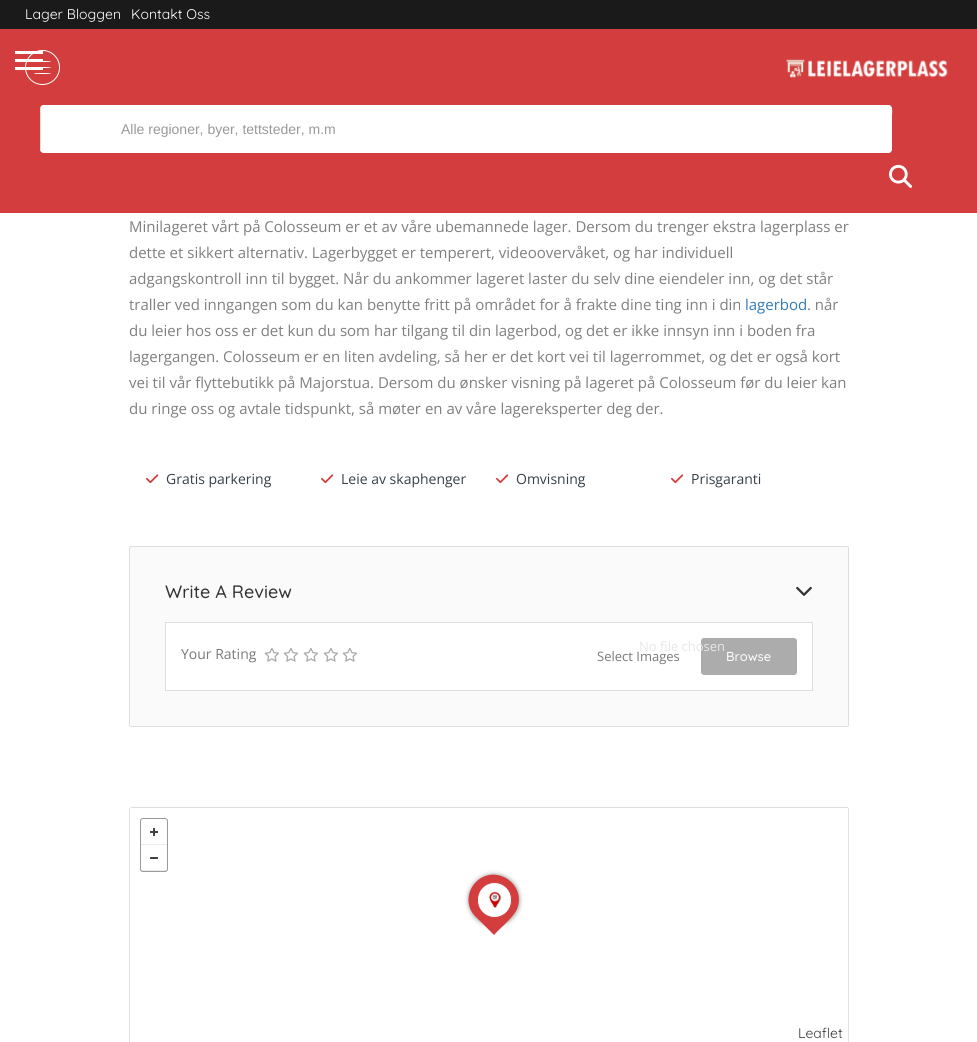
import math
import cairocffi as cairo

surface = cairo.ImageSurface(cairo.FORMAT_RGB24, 977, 1042)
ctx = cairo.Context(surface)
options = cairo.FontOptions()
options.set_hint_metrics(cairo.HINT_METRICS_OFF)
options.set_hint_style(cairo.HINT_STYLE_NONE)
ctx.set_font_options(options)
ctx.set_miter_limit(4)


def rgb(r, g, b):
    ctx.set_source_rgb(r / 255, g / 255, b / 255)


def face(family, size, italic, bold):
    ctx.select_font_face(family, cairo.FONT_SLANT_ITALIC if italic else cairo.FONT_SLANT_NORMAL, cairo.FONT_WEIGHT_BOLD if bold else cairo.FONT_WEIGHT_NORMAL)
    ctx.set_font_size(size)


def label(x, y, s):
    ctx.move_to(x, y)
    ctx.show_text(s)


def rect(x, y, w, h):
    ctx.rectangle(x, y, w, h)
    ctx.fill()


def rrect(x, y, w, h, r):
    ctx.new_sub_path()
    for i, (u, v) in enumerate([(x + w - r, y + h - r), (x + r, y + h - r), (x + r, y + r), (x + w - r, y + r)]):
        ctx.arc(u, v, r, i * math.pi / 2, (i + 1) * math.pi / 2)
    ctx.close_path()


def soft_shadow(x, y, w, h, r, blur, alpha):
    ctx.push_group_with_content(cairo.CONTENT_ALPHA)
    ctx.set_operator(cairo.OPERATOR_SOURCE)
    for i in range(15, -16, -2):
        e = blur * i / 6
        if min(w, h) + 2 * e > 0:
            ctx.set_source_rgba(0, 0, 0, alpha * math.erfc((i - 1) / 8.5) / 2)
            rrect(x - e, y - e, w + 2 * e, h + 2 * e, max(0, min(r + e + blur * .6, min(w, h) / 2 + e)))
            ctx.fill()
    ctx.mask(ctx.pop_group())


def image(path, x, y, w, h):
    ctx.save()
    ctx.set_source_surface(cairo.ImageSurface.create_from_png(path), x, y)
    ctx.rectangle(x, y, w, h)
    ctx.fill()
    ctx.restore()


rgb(255, 255, 255)
ctx.paint()
rgb(26, 26, 26)
rect(0, 0, 977, 29)
face('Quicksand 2 Light', 14, 0, 0)
rgb(255, 255, 255)
label(25, 19, 'Lager Bloggen')
label(131, 19, 'Kontakt Oss')
rgb(211, 61, 61)
rect(0, 29, 977, 184)
ctx.new_path()
ctx.arc(42.5, 67.5, 17, 0, 2 * math.pi)
rgb(255, 255, 255)
ctx.set_line_width(1)
ctx.stroke()
rect(15, 51, 28, 3)
ctx.new_path()
ctx.move_to(42.5, 61)
ctx.curve_to(47, 61, 51, 61, 51, 61.5)
ctx.curve_to(51, 62, 47, 62, 42.5, 62)
ctx.curve_to(38, 62, 34, 62, 34, 61.5)
ctx.curve_to(34, 61, 38, 61, 42.5, 61)
ctx.close_path()
ctx.fill()
rect(15, 59, 28, 3)
ctx.new_path()
ctx.move_to(42.5, 67)
ctx.curve_to(47, 67, 51, 67, 51, 67.5)
ctx.curve_to(51, 68, 47, 68, 42.5, 68)
ctx.curve_to(38, 68, 34, 68, 34, 67.5)
ctx.curve_to(34, 67, 38, 67, 42.5, 67)
ctx.close_path()
ctx.fill()
rect(15, 67, 28, 3)
ctx.new_path()
ctx.move_to(42.5, 73)
ctx.curve_to(47, 73, 51, 73, 51, 73.5)
ctx.curve_to(51, 74, 47, 74, 42.5, 74)
ctx.curve_to(38, 74, 34, 74, 34, 73.5)
ctx.curve_to(34, 73, 38, 73, 42.5, 73)
ctx.close_path()
ctx.fill()
image('image0.png', 786, 59, 162, 19)
rrect(40, 105, 852, 48, 4)
ctx.fill()
ctx.new_path()
ctx.move_to(41.5, 106.5)
ctx.line_to(43.5, 105.5)
ctx.line_to(888, 105.5)
ctx.curve_to(893, 105.5, 891.5, 113, 891.5, 115.5)
ctx.line_to(891.5, 149)
ctx.line_to(891, 150.5)
ctx.curve_to(890.5, 152, 889.5, 152.5, 888, 152.5)
ctx.line_to(43.5, 152.5)
ctx.line_to(41.5, 151.5)
ctx.stroke()
ctx.new_path()
ctx.move_to(41.5, 151.5)
ctx.curve_to(41, 151, 40.5, 150, 40.5, 149)
ctx.line_to(40.5, 109)
ctx.curve_to(40.5, 108, 41, 107, 41.5, 106.5)
rgb(222, 222, 222)
ctx.stroke()
rgb(255, 255, 255)
rect(41, 106, 1, 46)
face('Liberation Sans', 14, 0, 0)
rgb(153, 153, 153)
label(121, 134, 'Alle regioner, byer, tettsteder, m.m')
image('image1.png', 889, 164, 23, 24)
face('Open Sans', 15, 0, 0)
rgb(127, 127, 127)
label(129, 232, 'Minilageret vårt på Colosseum er et av våre ubemannede lager. Dersom du trenger ekstra lagerplass er')
label(129, 258, 'dette et sikkert alternativ. Lagerbygget er temperert, videoovervåket, og har individuell')
label(129, 284, 'adgangskontroll inn til bygget. Når du ankommer lageret laster du selv dine eiendeler inn, og det står')
label(129, 310, 'traller ved inngangen som du kan benytte fritt på området for å frakte dine ting inn i din')
rgb(51, 122, 183)
label(745, 310, 'lagerbod')
rgb(127, 127, 127)
label(807, 310, '. når')
label(129, 336, 'du leier hos oss er det kun du som har tilgang til din lagerbod, og det er ikke innsyn inn i boden fra')
label(129, 362, 'lagergangen. Colosseum er en liten avdeling, så her er det kort vei til lagerrommet, og det er også kort')
label(129, 388, 'vei til vår flyttebutikk på Majorstua. Dersom du ønsker visning på lageret på Colosseum før du leier kan')
label(129, 414, 'du ringe oss og avtale tidspunkt, så møter en av våre lagereksperter deg der.')
image('image2.png', 146, 474, 13, 10)
face('Open Sans', 14, 0, 0)
rgb(54, 63, 72)
label(166, 484, 'Gratis parkering')
image('image2.png', 321, 474, 13, 10)
label(341, 484, 'Leie av skaphenger')
image('image2.png', 496, 474, 13, 10)
label(516, 484, 'Omvisning')
image('image2.png', 671, 474, 13, 10)
label(691, 484, 'Prisgaranti')
rgb(250, 250, 250)
rrect(129.5, 546.5, 719, 180, 1.5)
ctx.fill_preserve()
rgb(222, 222, 222)
ctx.stroke()
face('Quicksand Light', 18, 0, 0)
rgb(51, 51, 51)
label(165, 598, 'Write A Review')
image('image3.png', 796, 586, 16, 10)
rgb(255, 255, 255)
ctx.rectangle(165.5, 622.5, 647, 68)
ctx.fill_preserve()
rgb(222, 222, 222)
ctx.stroke()
face('Open Sans', 14, 0, 0)
rgb(121, 121, 121)
label(181, 659, 'Your Rating')
image('image4.png', 264, 647, 15, 15)
image('image4.png', 283, 647, 15, 15)
image('image4.png', 303, 647, 15, 15)
image('image4.png', 323, 647, 15, 15)
image('image4.png', 342, 647, 15, 15)
rgb(172, 172, 172)
rrect(701, 638, 96, 37, 3)
ctx.fill()
face('Open Sans', 13, 0, 0)
rgb(231, 231, 231)
label(639, 651, 'No file chosen')
rgb(121, 121, 121)
label(597, 661, 'Select Images')
face('Quicksand Light', 13, 0, 0)
rgb(255, 255, 255)
label(726, 661, 'Browse')
rgb(222, 222, 222)
rect(131, 807, 717, 1)
rgb(227, 227, 227)
rect(848, 808, 1, 234)
rect(129, 808, 1, 234)
rgb(0, 0, 0)
soft_shadow(469, 875, 50, 50, 25, 2.5, 0.47)
rgb(211, 61, 61)
ctx.new_path()
ctx.move_to(476, 882)
ctx.curve_to(495, 863, 527, 884, 517, 909)
ctx.curve_to(513, 918, 500, 928, 494, 935)
ctx.line_to(476, 917)
ctx.curve_to(466, 908, 466, 892, 476, 882)
ctx.close_path()
ctx.fill()
rgb(255, 255, 255)
rrect(477.5, 882.5, 34, 35, 17)
ctx.fill_preserve()
rgb(211, 61, 61)
ctx.stroke()
image('image5.png', 489, 891, 13, 17)
rrect(140.5, 818.5, 27, 53, 2.5)
rgb(153, 153, 153)
ctx.stroke()
image('image6.png', 150, 828, 8, 8)
rgb(236, 236, 236)
rect(141, 844, 26, 1)
image('image7.png', 150, 857, 8, 2)
ctx.set_source_rgba(0, 0, 0, 0.08)
rect(141, 870, 26, 1)
face('Quicksand 2 Light', 14, 0, 0)
rgb(64, 64, 64)
label(798, 1038, 'Leaflet')
surface.write_to_png('render.png')
